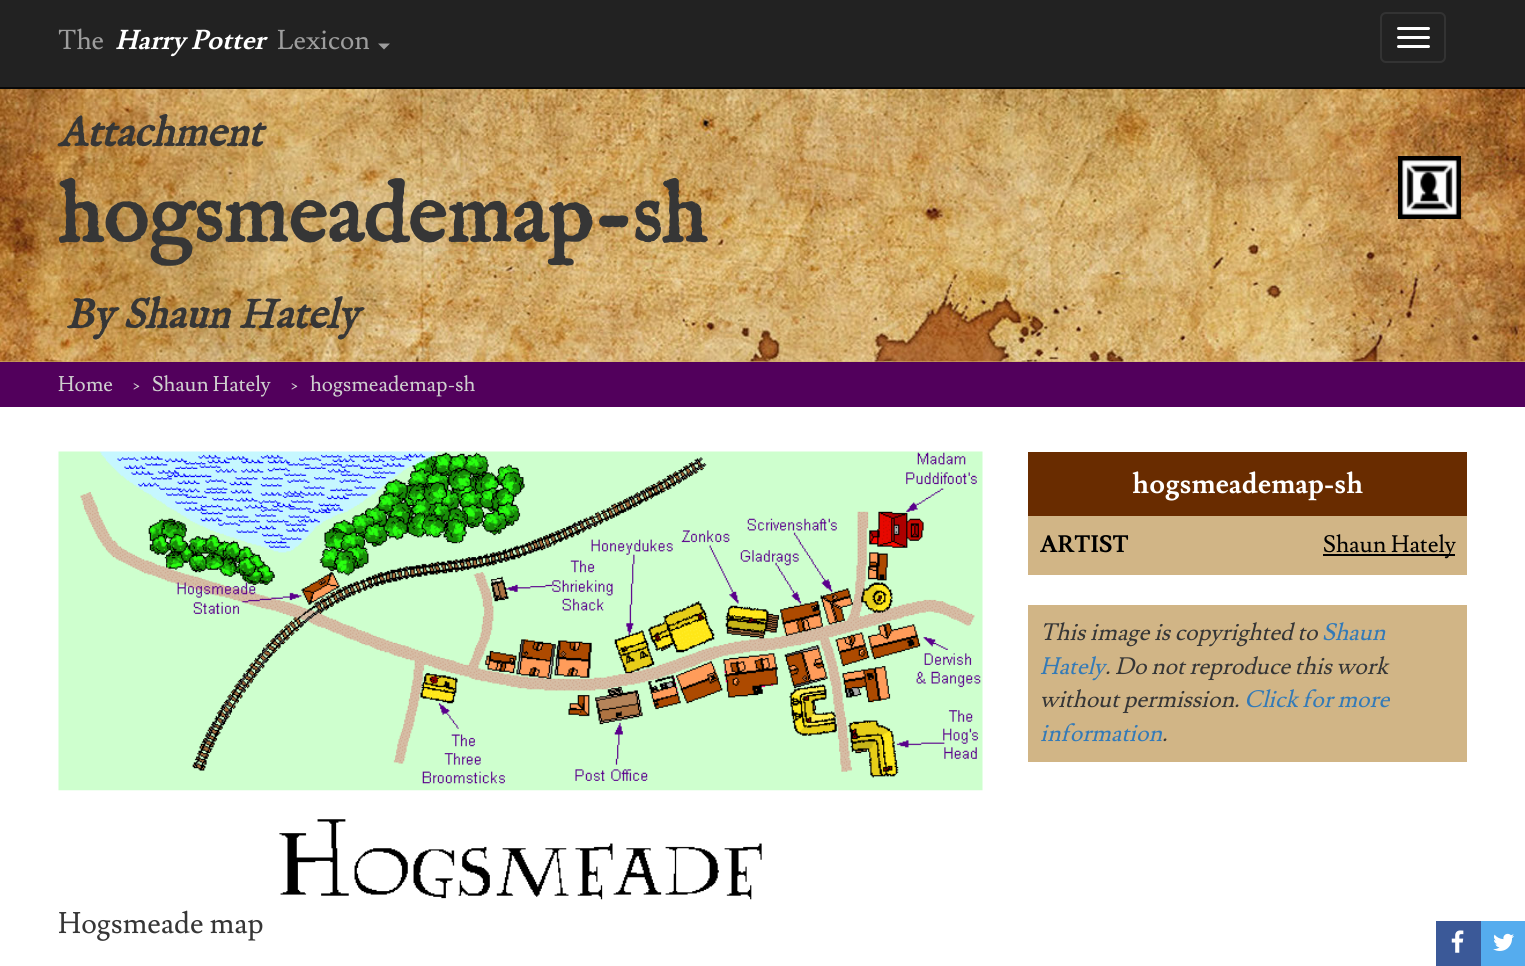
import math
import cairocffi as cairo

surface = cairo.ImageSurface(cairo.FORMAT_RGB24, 1525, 966)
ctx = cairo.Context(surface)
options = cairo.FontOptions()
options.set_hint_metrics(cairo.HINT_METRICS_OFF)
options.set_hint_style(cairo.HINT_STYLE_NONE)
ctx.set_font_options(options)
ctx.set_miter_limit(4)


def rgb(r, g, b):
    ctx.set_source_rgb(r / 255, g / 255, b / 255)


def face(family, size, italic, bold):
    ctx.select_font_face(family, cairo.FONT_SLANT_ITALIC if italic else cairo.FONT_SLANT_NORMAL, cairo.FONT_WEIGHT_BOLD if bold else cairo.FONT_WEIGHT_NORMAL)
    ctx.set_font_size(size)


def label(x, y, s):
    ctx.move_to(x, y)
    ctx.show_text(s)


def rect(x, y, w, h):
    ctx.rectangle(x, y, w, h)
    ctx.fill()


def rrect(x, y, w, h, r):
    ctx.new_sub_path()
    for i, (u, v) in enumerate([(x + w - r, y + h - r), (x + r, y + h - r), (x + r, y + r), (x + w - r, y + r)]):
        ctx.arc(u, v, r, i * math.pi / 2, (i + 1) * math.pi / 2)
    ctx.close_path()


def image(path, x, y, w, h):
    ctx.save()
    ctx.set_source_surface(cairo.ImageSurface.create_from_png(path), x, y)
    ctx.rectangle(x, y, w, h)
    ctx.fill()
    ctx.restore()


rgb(255, 255, 255)
ctx.paint()
rgb(34, 34, 34)
rect(0, 0, 1525, 87)
rgb(8, 8, 8)
rect(0, 87, 1525, 2)
face('Lusitana', 27, 0, 0)
rgb(157, 157, 157)
label(58, 49, 'The')
face('Lusitana', 27, 1, 1)
rgb(255, 255, 255)
label(115, 49, 'Harry Potter')
face('Lusitana', 27, 0, 0)
rgb(157, 157, 157)
label(277, 49, 'Lexicon')
ctx.new_path()
ctx.move_to(378, 43.5)
ctx.line_to(390, 43.5)
ctx.line_to(384, 49.5)
ctx.close_path()
ctx.fill()
rrect(1381, 13, 64, 49, 5)
rgb(51, 51, 51)
ctx.stroke()
rgb(255, 255, 255)
rrect(1397, 27, 33, 3, 1.5)
ctx.fill()
rrect(1397, 36, 33, 3, 1.5)
ctx.fill()
rrect(1397, 45, 33, 3, 1.5)
ctx.fill()
rgb(210, 179, 113)
rect(0, 361, 1525, 1)
image('image0.png', 0, 89, 1525, 273)
face('IM FELL English', 42, 1, 1)
rgb(54, 54, 54)
label(58, 146, 'Attachment')
face('IM FELL English', 84, 0, 1)
label(58, 242, 'hogsmeademap-sh')
image('image1.png', 1398, 156, 63, 63)
face('IM FELL English', 42, 1, 1)
label(65, 328, 'By')
label(123, 328, 'Shaun Hately')
rgb(82, 0, 92)
rect(0, 362, 1525, 45)
face('Lusitana', 21, 0, 0)
rgb(206, 206, 206)
label(58, 391, 'Home')
label(132, 391, '›')
label(152, 391, 'Shaun Hately')
label(290, 391, '›')
label(310, 391, 'hogsmeademap-sh')
rgb(105, 44, 0)
rect(1028, 452, 439, 64)
face('Lusitana', 28.25, 0, 1)
rgb(255, 255, 255)
label(1132, 493, 'hogsmeademap-sh')
rgb(209, 181, 134)
rect(1028, 516, 439, 59)
face('Lusitana', 23.5, 0, 1)
rgb(0, 0, 0)
label(1040, 552, 'ARTIST')
rect(1323, 554, 132, 2)
face('Lusitana', 23.5, 0, 0)
label(1323, 552, 'Shaun Hately')
rgb(209, 181, 134)
rect(1028, 605, 439, 157)
face('Lusitana', 23.5, 1, 0)
rgb(54, 54, 54)
label(1040, 640, 'This image is copyrighted to')
rgb(51, 122, 183)
label(1322, 640, 'Shaun')
label(1040, 674, 'Hately')
rgb(54, 54, 54)
label(1105, 674, '. Do not reproduce this work')
label(1040, 707, 'without permission.')
rgb(51, 122, 183)
label(1244, 707, 'Click for more')
label(1040, 741, 'information')
rgb(54, 54, 54)
label(1162, 741, '.')
image('image2.png', 58, 451, 925, 449)
face('Lusitana', 29.5, 0, 0)
label(58, 933, 'Hogsmeade map')
rgb(59, 89, 152)
rect(1436, 921, 45, 45)
image('image3.png', 1451, 930, 13, 23)
rgb(85, 172, 238)
rect(1481, 921, 44, 45)
image('image4.png', 1493, 933, 21, 18)
surface.write_to_png('render.png')
